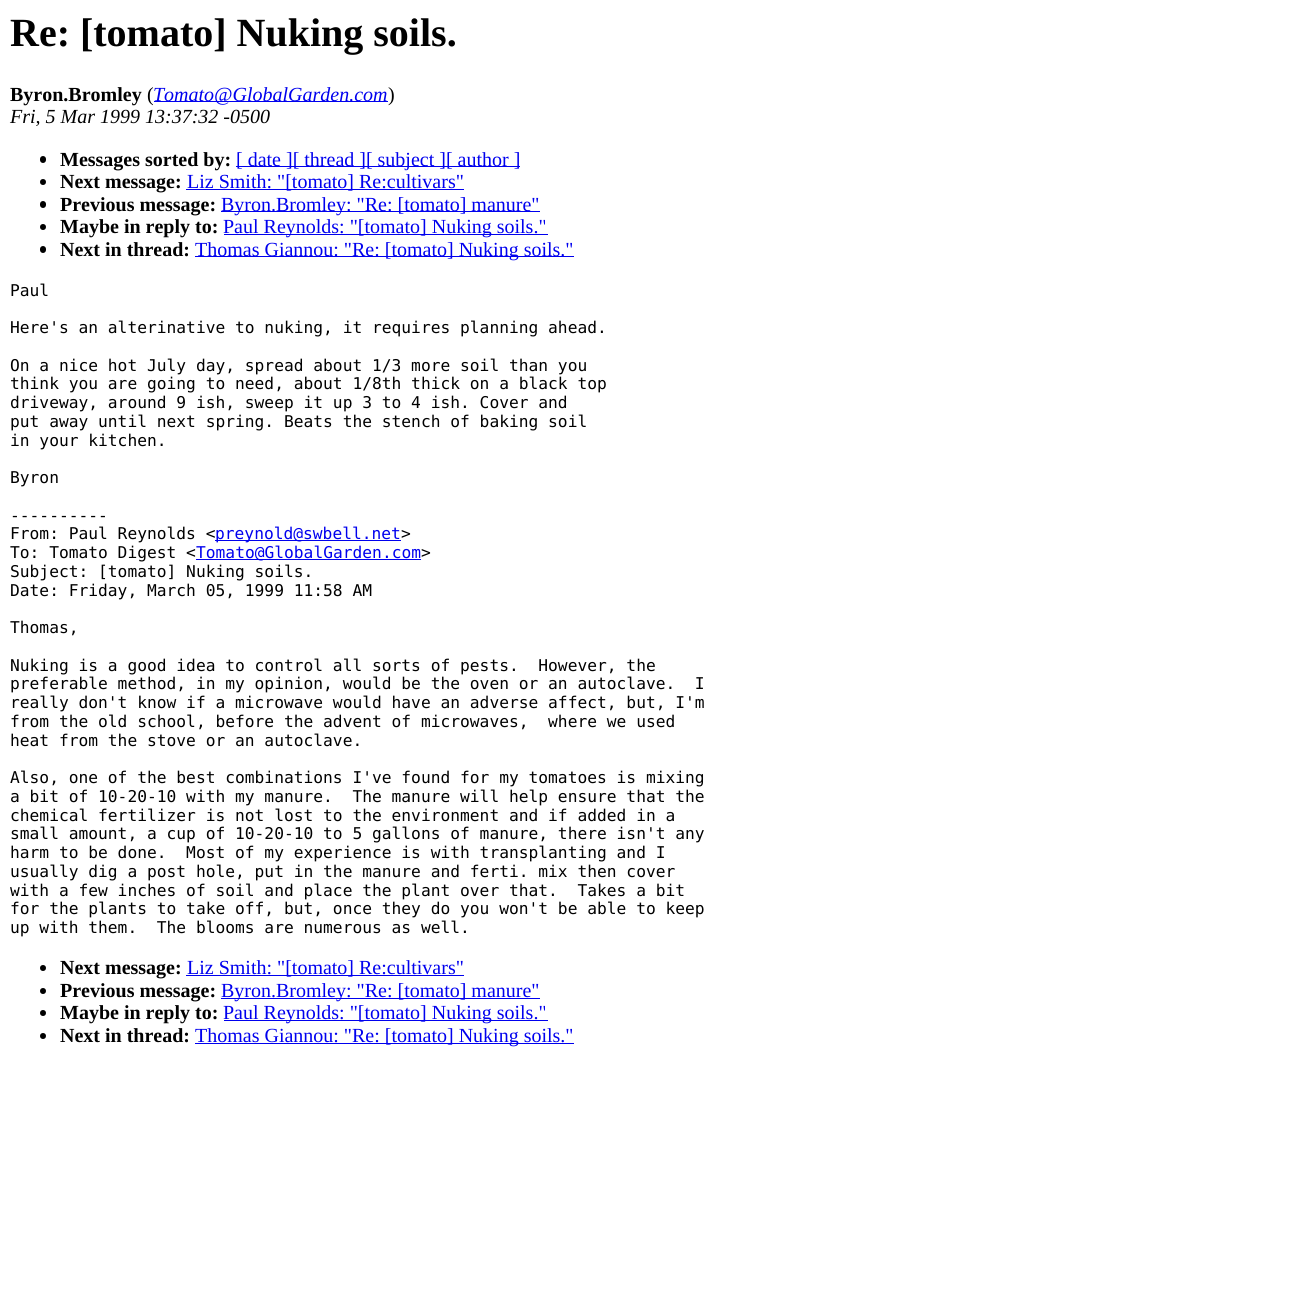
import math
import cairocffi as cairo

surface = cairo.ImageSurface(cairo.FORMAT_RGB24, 1290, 1294)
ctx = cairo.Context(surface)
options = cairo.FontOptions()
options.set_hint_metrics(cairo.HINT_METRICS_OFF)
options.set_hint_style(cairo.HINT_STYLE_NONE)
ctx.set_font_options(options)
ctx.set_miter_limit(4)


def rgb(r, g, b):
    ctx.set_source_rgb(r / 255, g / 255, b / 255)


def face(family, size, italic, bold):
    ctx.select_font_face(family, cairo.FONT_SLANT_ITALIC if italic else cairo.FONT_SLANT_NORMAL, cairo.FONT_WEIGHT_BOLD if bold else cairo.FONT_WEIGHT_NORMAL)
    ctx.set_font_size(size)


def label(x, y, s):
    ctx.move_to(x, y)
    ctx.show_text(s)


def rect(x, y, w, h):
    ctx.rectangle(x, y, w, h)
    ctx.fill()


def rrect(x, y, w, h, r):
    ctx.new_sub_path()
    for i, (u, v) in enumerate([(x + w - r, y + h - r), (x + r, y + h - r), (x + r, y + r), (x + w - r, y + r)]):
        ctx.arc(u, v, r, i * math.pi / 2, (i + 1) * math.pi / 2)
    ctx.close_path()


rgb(255, 255, 255)
ctx.paint()
face('Liberation Serif', 40, 0, 1)
rgb(0, 0, 0)
label(10, 46, 'Re: [tomato] Nuking soils.')
face('Liberation Serif', 20, 0, 1)
label(10, 101, 'Byron.Bromley')
face('Liberation Serif', 20, 0, 0)
label(147, 101, '(')
rgb(0, 0, 238)
rect(154, 101, 234, 1)
face('Liberation Serif', 20, 1, 0)
label(153, 101, 'Tomato@GlobalGarden.com')
face('Liberation Serif', 20, 0, 0)
rgb(0, 0, 0)
label(388, 101, ')')
face('Liberation Serif', 20, 1, 0)
label(10, 123, 'Fri, 5 Mar 1999 13:37:32 -0500')
rrect(40, 156, 6, 7, 3)
ctx.fill()
face('Liberation Serif', 20, 0, 1)
label(60, 166, 'Messages sorted by:')
rgb(0, 0, 238)
rect(236, 166, 284, 1)
face('Liberation Serif', 20, 0, 0)
label(236, 166, '[ date ][ thread ][ subject ][ author ]')
rgb(0, 0, 0)
ctx.new_path()
ctx.arc(43, 182, 3, 0, 2 * math.pi)
ctx.fill()
face('Liberation Serif', 20, 0, 1)
label(60, 188, 'Next message:')
rgb(0, 0, 238)
rect(186, 189, 278, 1)
face('Liberation Serif', 20, 0, 0)
label(187, 188, 'Liz Smith: "[tomato] Re:cultivars"')
rgb(0, 0, 0)
rrect(40, 201, 6, 7, 3)
ctx.fill()
face('Liberation Serif', 20, 0, 1)
label(60, 211, 'Previous message:')
rgb(0, 0, 238)
rect(221, 211, 319, 1)
face('Liberation Serif', 20, 0, 0)
label(221, 211, 'Byron.Bromley: "Re: [tomato] manure"')
rgb(0, 0, 0)
ctx.new_path()
ctx.arc(43, 227, 3, 0, 2 * math.pi)
ctx.fill()
face('Liberation Serif', 20, 0, 1)
label(60, 233, 'Maybe in reply to:')
rgb(0, 0, 238)
rect(224, 234, 324, 1)
face('Liberation Serif', 20, 0, 0)
label(223, 233, 'Paul Reynolds: "[tomato] Nuking soils."')
rgb(0, 0, 0)
rrect(40, 246, 6, 7, 3)
ctx.fill()
face('Liberation Serif', 20, 0, 1)
label(60, 256, 'Next in thread:')
rgb(0, 0, 238)
rect(195, 256, 379, 1)
face('Liberation Serif', 20, 0, 0)
label(195, 256, 'Thomas Giannou: "Re: [tomato] Nuking soils."')
face('DejaVu Sans Mono', 16.25, 0, 0)
rgb(0, 0, 0)
label(10, 296, 'Paul')
label(10, 333, 'Here\'s an alterinative to nuking, it requires planning ahead.')
label(10, 371, 'On a nice hot July day, spread about 1/3 more soil than you')
label(10, 389, 'think you are going to need, about 1/8th thick on a black top')
label(10, 408, 'driveway, around 9 ish, sweep it up 3 to 4 ish. Cover and')
label(10, 427, 'put away until next spring. Beats the stench of baking soil')
label(10, 446, 'in your kitchen.')
label(10, 483, 'Byron')
label(10, 521, '----------')
label(10, 539, 'From: Paul Reynolds <')
rgb(0, 0, 238)
rect(215, 540, 186, 1)
label(215, 539, 'preynold@swbell.net')
rgb(0, 0, 0)
label(401, 539, '>')
label(10, 558, 'To: Tomato Digest <')
rgb(0, 0, 238)
rect(196, 559, 225, 1)
label(196, 558, 'Tomato@GlobalGarden.com')
rgb(0, 0, 0)
label(421, 558, '>')
label(10, 577, 'Subject: [tomato] Nuking soils.')
label(10, 596, 'Date: Friday, March 05, 1999 11:58 AM')
label(10, 633, 'Thomas,')
label(10, 671, 'Nuking is a good idea to control all sorts of pests.  However, the')
label(10, 689, 'preferable method, in my opinion, would be the oven or an autoclave.  I')
label(10, 708, 'really don\'t know if a microwave would have an adverse affect, but, I\'m')
label(10, 727, 'from the old school, before the advent of microwaves,  where we used')
label(10, 746, 'heat from the stove or an autoclave.')
label(10, 783, 'Also, one of the best combinations I\'ve found for my tomatoes is mixing')
label(10, 802, 'a bit of 10-20-10 with my manure.  The manure will help ensure that the')
label(10, 821, 'chemical fertilizer is not lost to the environment and if added in a')
label(10, 839, 'small amount, a cup of 10-20-10 to 5 gallons of manure, there isn\'t any')
label(10, 858, 'harm to be done.  Most of my experience is with transplanting and I')
label(10, 877, 'usually dig a post hole, put in the manure and ferti. mix then cover')
label(10, 896, 'with a few inches of soil and place the plant over that.  Takes a bit')
label(10, 914, 'for the plants to take off, but, once they do you won\'t be able to keep')
label(10, 933, 'up with them.  The blooms are numerous as well.')
ctx.new_path()
ctx.arc(43, 968, 3, 0, 2 * math.pi)
ctx.fill()
face('Liberation Serif', 20, 0, 1)
label(60, 974, 'Next message:')
rgb(0, 0, 238)
rect(186, 975, 278, 1)
face('Liberation Serif', 20, 0, 0)
label(187, 974, 'Liz Smith: "[tomato] Re:cultivars"')
rgb(0, 0, 0)
ctx.new_path()
ctx.arc(43, 991, 3, 0, 2 * math.pi)
ctx.fill()
face('Liberation Serif', 20, 0, 1)
label(60, 997, 'Previous message:')
rgb(0, 0, 238)
rect(221, 998, 319, 1)
face('Liberation Serif', 20, 0, 0)
label(221, 997, 'Byron.Bromley: "Re: [tomato] manure"')
rgb(0, 0, 0)
ctx.new_path()
ctx.arc(43, 1013, 3, 0, 2 * math.pi)
ctx.fill()
face('Liberation Serif', 20, 0, 1)
label(60, 1019, 'Maybe in reply to:')
rgb(0, 0, 238)
rect(224, 1020, 324, 1)
face('Liberation Serif', 20, 0, 0)
label(223, 1019, 'Paul Reynolds: "[tomato] Nuking soils."')
rgb(0, 0, 0)
ctx.new_path()
ctx.arc(43, 1036, 3, 0, 2 * math.pi)
ctx.fill()
face('Liberation Serif', 20, 0, 1)
label(60, 1042, 'Next in thread:')
rgb(0, 0, 238)
rect(195, 1043, 379, 1)
face('Liberation Serif', 20, 0, 0)
label(195, 1042, 'Thomas Giannou: "Re: [tomato] Nuking soils."')
surface.write_to_png('render.png')
